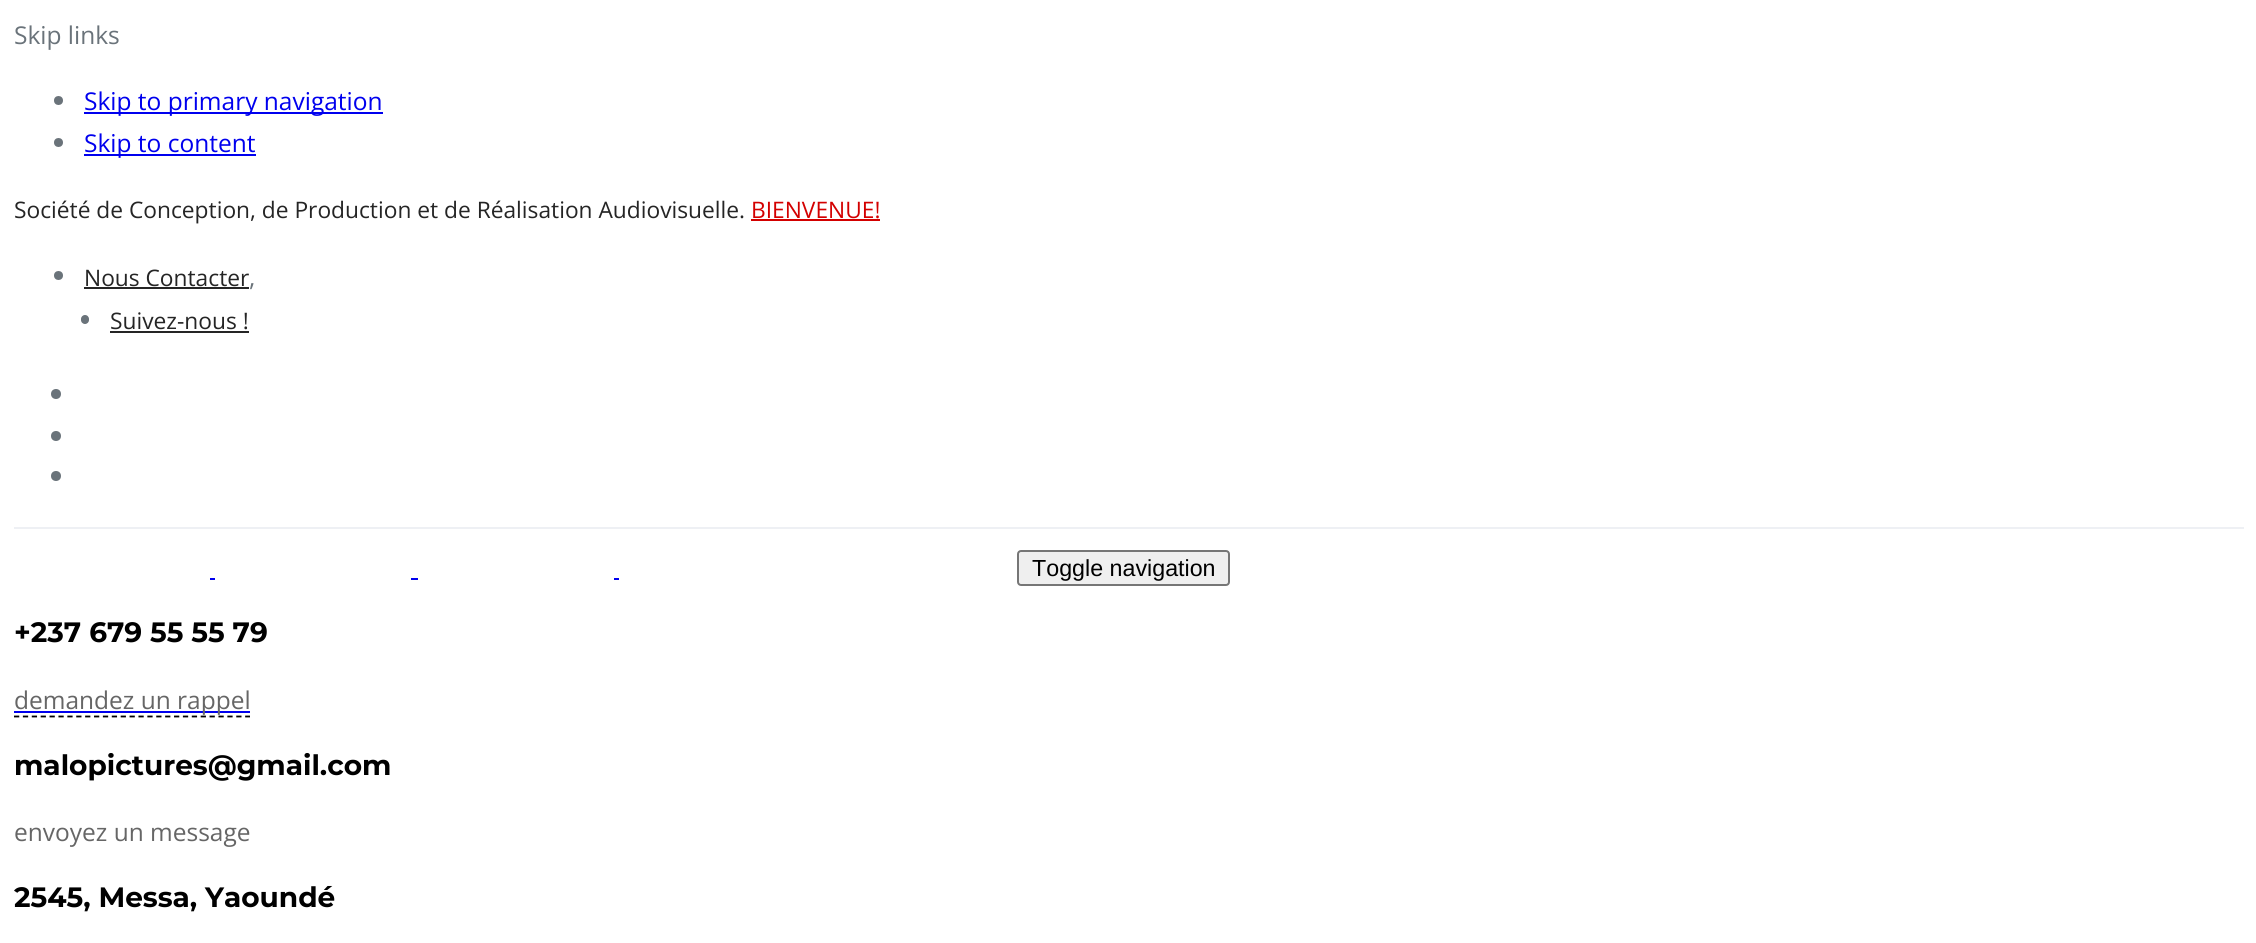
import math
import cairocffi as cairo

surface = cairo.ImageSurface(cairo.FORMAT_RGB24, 2256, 943)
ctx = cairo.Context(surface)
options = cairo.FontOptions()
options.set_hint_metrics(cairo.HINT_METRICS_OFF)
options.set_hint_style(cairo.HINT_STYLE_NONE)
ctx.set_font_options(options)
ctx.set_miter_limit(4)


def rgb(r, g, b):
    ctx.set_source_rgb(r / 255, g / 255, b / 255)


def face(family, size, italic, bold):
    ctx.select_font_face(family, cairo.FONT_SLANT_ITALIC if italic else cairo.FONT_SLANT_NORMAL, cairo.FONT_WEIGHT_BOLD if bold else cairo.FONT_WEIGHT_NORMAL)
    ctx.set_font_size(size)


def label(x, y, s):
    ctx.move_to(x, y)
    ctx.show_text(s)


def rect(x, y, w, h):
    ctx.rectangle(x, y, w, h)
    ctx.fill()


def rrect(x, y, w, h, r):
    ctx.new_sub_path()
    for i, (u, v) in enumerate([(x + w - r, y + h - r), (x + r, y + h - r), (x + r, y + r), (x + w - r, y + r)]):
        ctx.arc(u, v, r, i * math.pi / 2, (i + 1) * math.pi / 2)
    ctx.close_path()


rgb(255, 255, 255)
ctx.paint()
face('Open Sans', 24.5, 0, 0)
rgb(106, 115, 122)
label(14, 44, 'Skip links')
ctx.new_path()
ctx.arc(58.5, 100.5, 4.5, 0, 2 * math.pi)
ctx.fill()
rgb(0, 0, 238)
rect(84, 112, 299, 2)
label(84, 110, 'Skip to primary navigation')
rgb(106, 115, 122)
ctx.new_path()
ctx.arc(58.5, 142.5, 4.5, 0, 2 * math.pi)
ctx.fill()
rgb(0, 0, 238)
rect(84, 154, 172, 2)
label(84, 152, 'Skip to content')
rgb(238, 240, 244)
rect(14, 527, 2230, 2)
face('Open Sans', 22.75, 0, 0)
rgb(37, 37, 37)
label(14, 218, 'Société de Conception, de Production et de Réalisation Audiovisuelle.')
rgb(211, 0, 0)
label(751, 218, 'BIENVENUE!')
rect(751, 219, 129, 2)
rgb(106, 115, 122)
ctx.new_path()
ctx.arc(58.5, 275.5, 4.5, 0, 2 * math.pi)
ctx.fill()
rgb(37, 37, 37)
label(84, 286, 'Nous Contacter')
rect(84, 287, 165, 2)
face('Open Sans', 24.5, 0, 0)
rgb(106, 115, 122)
label(249, 286, ',')
rrect(81, 315, 8, 9, 4)
ctx.fill()
face('Open Sans', 22.75, 0, 0)
rgb(37, 37, 37)
label(110, 329, 'Suivez-nous !')
rect(110, 331, 139, 2)
rgb(106, 115, 122)
ctx.new_path()
ctx.arc(56, 394, 5, 0, 2 * math.pi)
ctx.fill()
ctx.arc(56, 436, 5, 0, 2 * math.pi)
ctx.fill()
ctx.arc(56, 476, 5, 0, 2 * math.pi)
ctx.fill()
rgb(0, 0, 238)
rect(210, 578, 5, 2)
rect(411, 578, 7, 2)
rect(614, 578, 5, 2)
rgb(239, 239, 239)
rrect(1018, 551, 211, 34, 3)
ctx.fill_preserve()
rgb(118, 118, 118)
ctx.stroke()
face('Liberation Sans', 23.25, 0, 0)
rgb(0, 0, 0)
label(1032, 576, 'Toggle navigation')
face('Montserrat', 28, 0, 1)
label(14, 642, '+237 679 55 55 79')
rgb(0, 0, 238)
rect(14, 711, 236, 2)
face('Open Sans', 24.5, 0, 0)
rgb(102, 102, 102)
label(14, 709, 'demandez un rappel')
ctx.new_path()
ctx.move_to(14, 716.5)
ctx.line_to(250, 716.5)
rgb(0, 0, 0)
ctx.set_line_width(1.8)
ctx.set_dash([5.25, 3.64])
ctx.stroke()
face('Montserrat', 28, 0, 1)
label(14, 775, 'malopictures@gmail.com')
face('Open Sans', 24.5, 0, 0)
rgb(102, 102, 102)
label(14, 841, 'envoyez un message')
face('Montserrat', 28, 0, 1)
rgb(0, 0, 0)
label(14, 907, '2545, Messa, Yaoundé')
surface.write_to_png('render.png')
